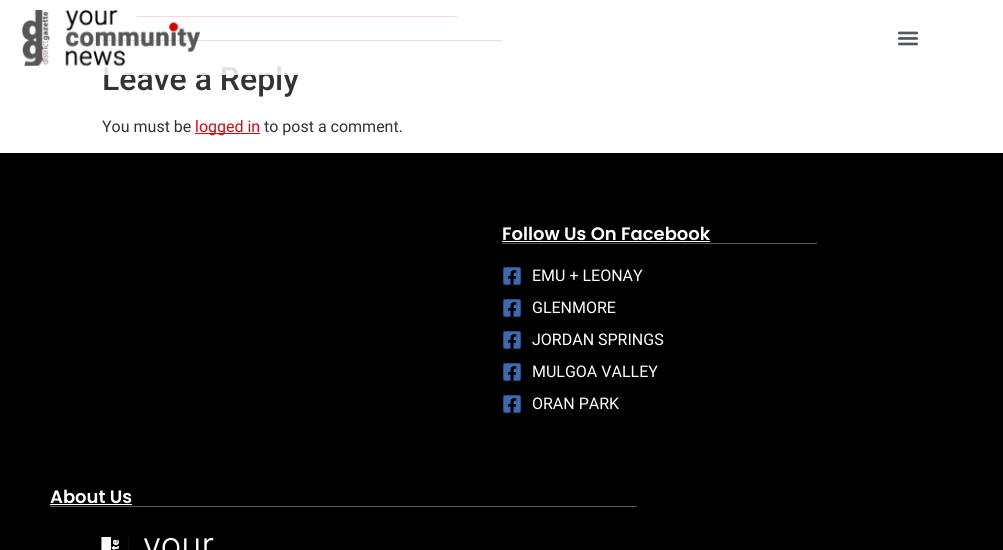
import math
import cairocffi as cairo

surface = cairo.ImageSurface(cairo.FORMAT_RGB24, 1003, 550)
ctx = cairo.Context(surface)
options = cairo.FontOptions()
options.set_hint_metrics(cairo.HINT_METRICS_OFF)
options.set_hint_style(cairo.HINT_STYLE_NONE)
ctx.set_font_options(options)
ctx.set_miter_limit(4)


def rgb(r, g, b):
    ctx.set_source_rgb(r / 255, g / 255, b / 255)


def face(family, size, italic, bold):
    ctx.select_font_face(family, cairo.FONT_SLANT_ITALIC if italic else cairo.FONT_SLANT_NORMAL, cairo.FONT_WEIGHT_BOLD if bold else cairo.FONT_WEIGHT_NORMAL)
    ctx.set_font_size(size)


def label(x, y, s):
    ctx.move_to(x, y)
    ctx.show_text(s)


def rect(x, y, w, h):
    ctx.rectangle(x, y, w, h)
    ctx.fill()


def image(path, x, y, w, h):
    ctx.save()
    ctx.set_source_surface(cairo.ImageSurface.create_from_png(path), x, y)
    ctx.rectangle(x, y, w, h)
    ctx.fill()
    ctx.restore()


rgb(255, 255, 255)
ctx.paint()
rgb(209, 10, 16)
rect(137, 16, 320, 1)
rect(102, 40, 400, 1)
face('Roboto Medium', 32, 0, 0)
rgb(51, 51, 51)
label(102, 90, 'Leave a Reply')
ctx.set_source_rgba(1, 1, 1, 0.85)
rect(102, 16, 400, 59)
image('image0.png', 22, 10, 178, 56)
image('image1.png', 897, 31, 22, 15)
face('Roboto', 16, 0, 0)
rgb(51, 51, 51)
label(102, 132, 'You must be')
rgb(209, 10, 16)
rect(195, 133, 65, 1)
label(195, 132, 'logged in')
rgb(51, 51, 51)
label(264, 132, 'to post a comment.')
rgb(0, 0, 0)
rect(0, 153, 1003, 397)
rgb(84, 89, 95)
rect(502, 243, 315, 1)
face('Poppins SemiBold', 18, 0, 0)
rgb(255, 255, 255)
label(502, 240, 'Follow Us On Facebook')
rect(502, 241, 208, 1)
image('image2.png', 503, 267, 18, 18)
face('Roboto', 16, 0, 0)
label(532, 281, 'EMU + LEONAY')
image('image2.png', 503, 299, 18, 18)
label(532, 313, 'GLENMORE')
image('image2.png', 503, 331, 18, 18)
label(532, 345, 'JORDAN SPRINGS')
image('image2.png', 503, 363, 18, 18)
label(532, 377, 'MULGOA VALLEY')
image('image2.png', 503, 395, 18, 18)
label(532, 409, 'ORAN PARK')
rgb(84, 89, 95)
rect(50, 506, 587, 1)
face('Poppins SemiBold', 18, 0, 0)
rgb(255, 255, 255)
label(50, 503, 'About Us')
rect(50, 504, 82, 1)
image('image3.png', 101, 537, 113, 13)
surface.write_to_png('render.png')
